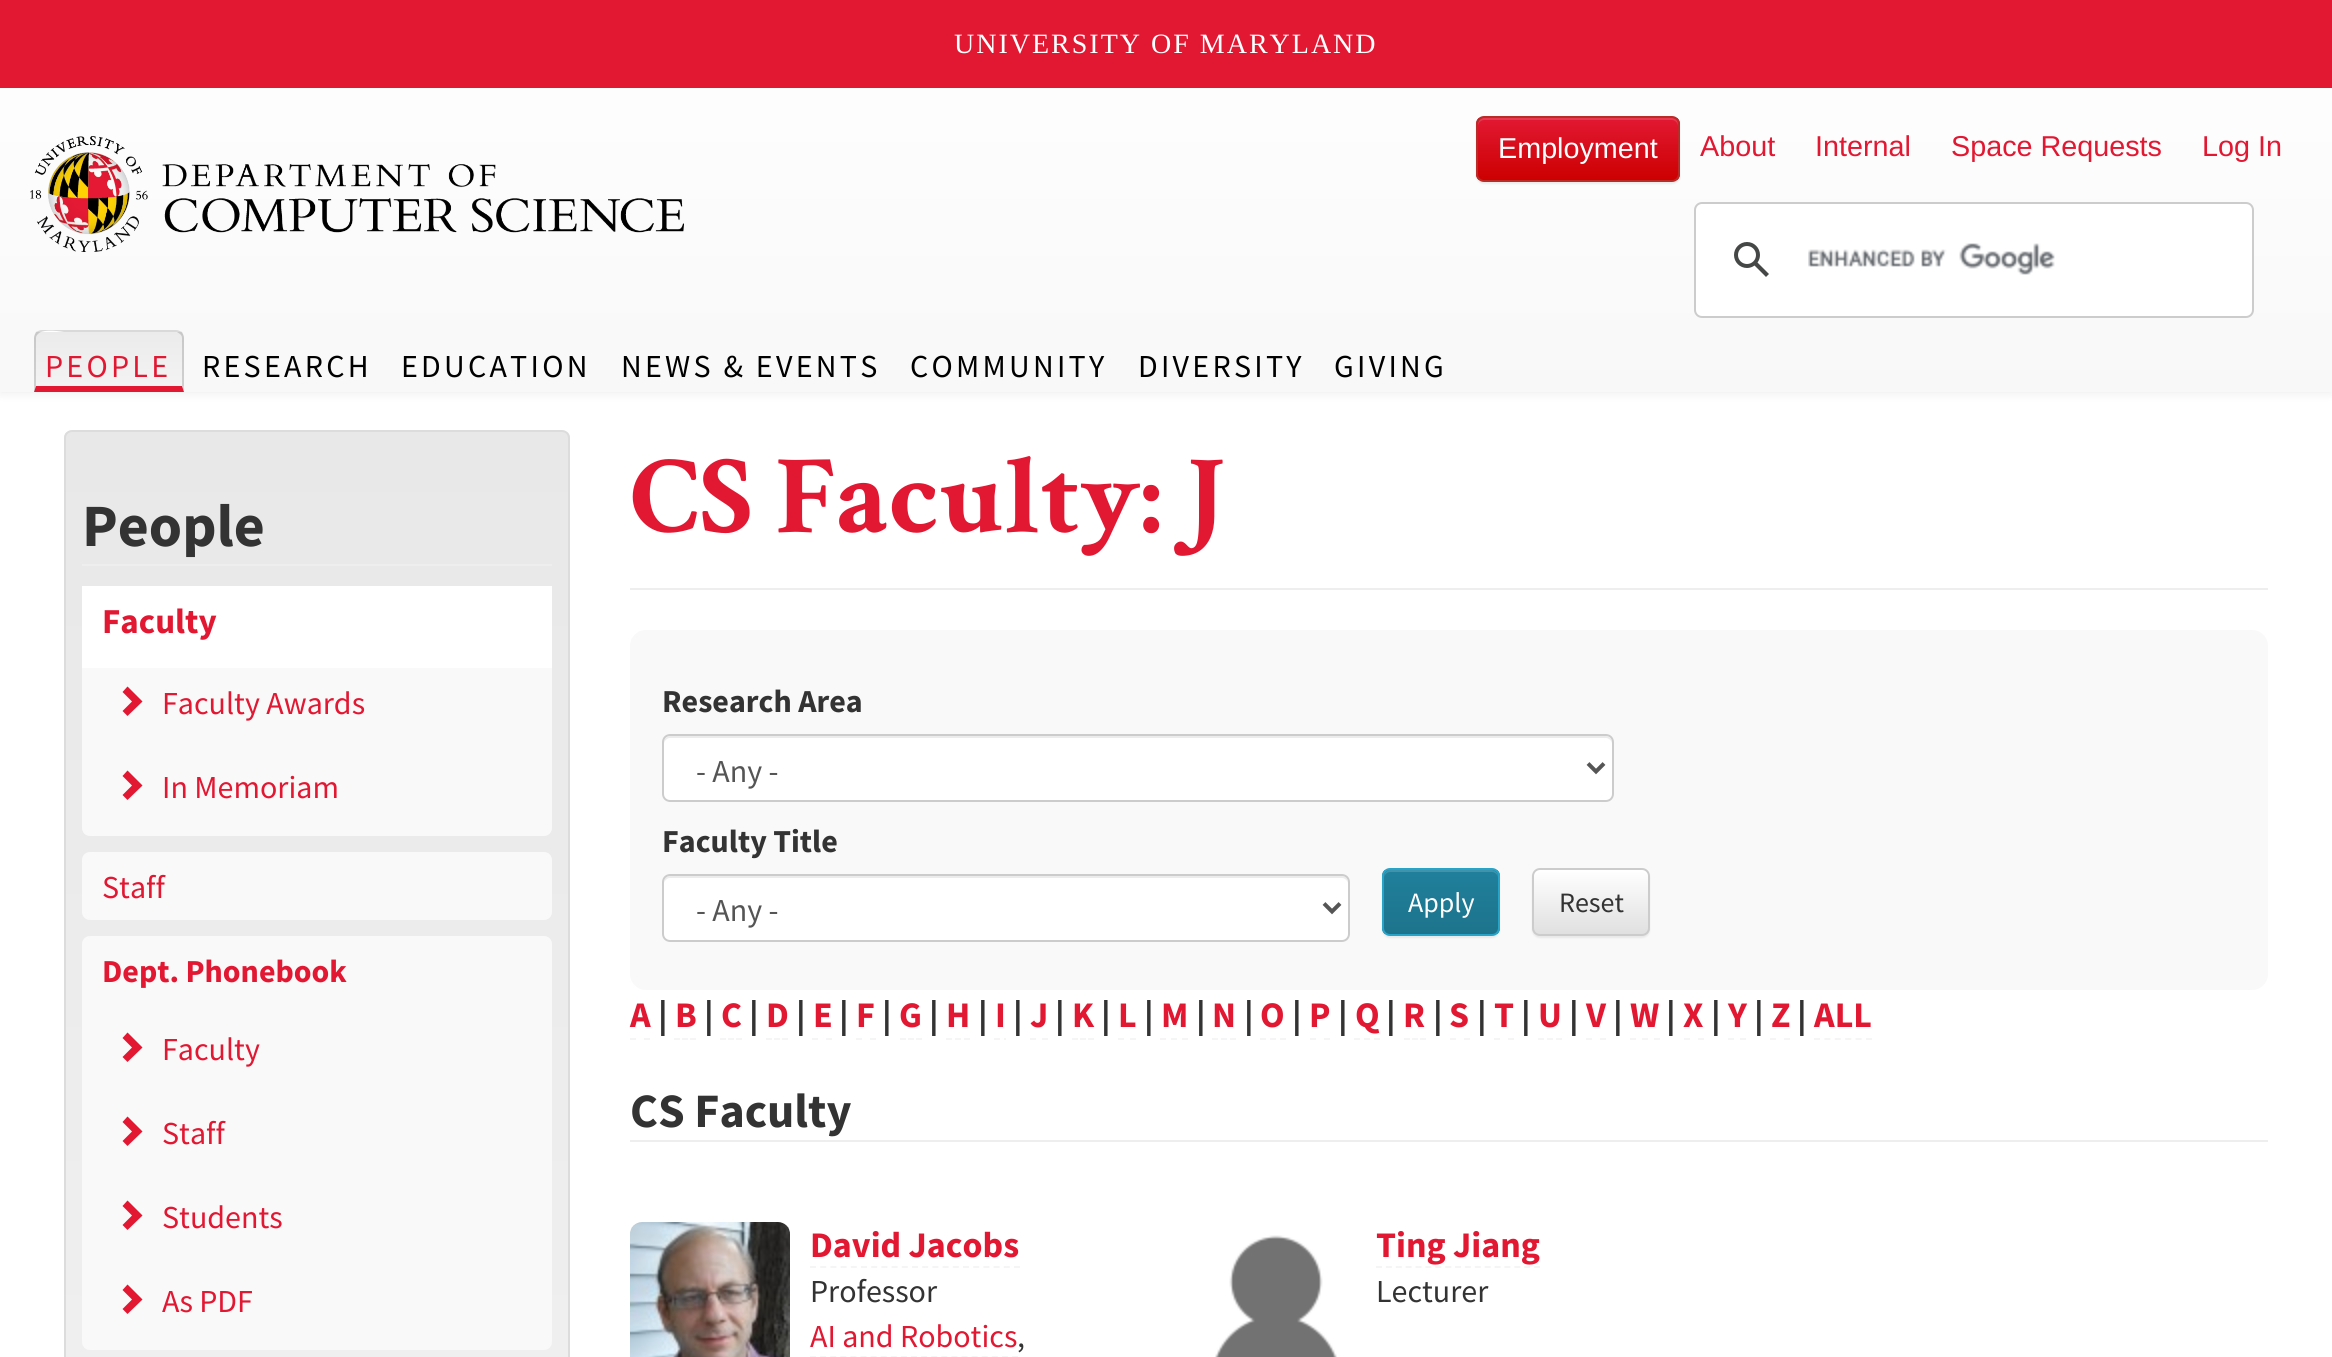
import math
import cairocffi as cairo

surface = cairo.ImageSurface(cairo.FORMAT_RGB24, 2332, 1357)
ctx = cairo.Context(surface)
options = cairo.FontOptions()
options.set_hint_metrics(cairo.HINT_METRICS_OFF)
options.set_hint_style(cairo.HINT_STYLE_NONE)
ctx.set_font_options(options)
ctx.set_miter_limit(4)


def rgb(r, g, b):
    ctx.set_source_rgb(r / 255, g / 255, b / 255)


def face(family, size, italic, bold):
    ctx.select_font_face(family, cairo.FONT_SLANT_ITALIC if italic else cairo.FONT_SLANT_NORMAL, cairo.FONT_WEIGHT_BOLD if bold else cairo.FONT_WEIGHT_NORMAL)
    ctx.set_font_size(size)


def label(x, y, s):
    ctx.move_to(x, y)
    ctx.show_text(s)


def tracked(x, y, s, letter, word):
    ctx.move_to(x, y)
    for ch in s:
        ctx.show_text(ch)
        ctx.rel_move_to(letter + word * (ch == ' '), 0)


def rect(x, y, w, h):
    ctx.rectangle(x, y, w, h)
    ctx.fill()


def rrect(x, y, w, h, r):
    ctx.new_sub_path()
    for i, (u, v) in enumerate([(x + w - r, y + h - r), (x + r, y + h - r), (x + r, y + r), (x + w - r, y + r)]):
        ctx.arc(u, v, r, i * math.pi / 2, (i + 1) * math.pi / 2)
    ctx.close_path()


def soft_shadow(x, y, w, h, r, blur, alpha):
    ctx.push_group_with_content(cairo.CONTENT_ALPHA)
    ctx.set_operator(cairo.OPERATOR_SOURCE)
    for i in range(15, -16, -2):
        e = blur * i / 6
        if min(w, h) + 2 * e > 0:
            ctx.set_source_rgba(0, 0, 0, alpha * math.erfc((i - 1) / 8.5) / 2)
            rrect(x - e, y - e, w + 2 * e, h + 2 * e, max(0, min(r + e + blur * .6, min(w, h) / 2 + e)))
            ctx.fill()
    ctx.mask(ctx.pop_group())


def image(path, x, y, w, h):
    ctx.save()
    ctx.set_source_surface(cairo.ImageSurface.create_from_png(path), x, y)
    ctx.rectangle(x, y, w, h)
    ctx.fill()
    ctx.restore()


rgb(255, 255, 255)
ctx.paint()
rgb(0, 0, 0)
soft_shadow(0, 2, 2332, 392, 0, 5, 0.07)
rgb(226, 24, 51)
rect(0, 0, 2332, 88)
face('Liberation Serif', 28, 0, 0)
rgb(255, 255, 255)
tracked(954, 53, 'UNIVERSITY OF MARYLAND', 2, 0)
gradient = cairo.LinearGradient(1166, 0, 1166, 392)
gradient.add_color_stop_rgba(0, 1, 1, 1, 1)
gradient.add_color_stop_rgba(1, 0.973, 0.973, 0.973, 1)
ctx.set_source(gradient)
rect(0, 88, 2332, 304)
rgb(0, 0, 0)
soft_shadow(1476, 118, 204, 66, 8, 1, 0.07)
ctx.save()
rrect(1476, 116, 204, 66, 8)
ctx.clip()
gradient = cairo.LinearGradient(1578, 118, 1578, 180)
gradient.add_color_stop_rgba(0, 0.886, 0.094, 0.2, 1)
gradient.add_color_stop_rgba(1, 0.8, 0, 0, 1)
ctx.set_source(gradient)
rect(1476, 118, 204, 62)
ctx.restore()
ctx.set_source_rgba(1, 1, 1, 0.15)
ctx.new_path()
ctx.move_to(1484, 120)
ctx.line_to(1672, 120)
ctx.curve_to(1675, 120, 1678, 123, 1678, 126)
ctx.line_to(1678, 124)
ctx.curve_to(1678, 121, 1675, 118, 1672, 118)
ctx.line_to(1484, 118)
ctx.curve_to(1481, 118, 1478, 121, 1478, 124)
ctx.line_to(1478, 126)
ctx.curve_to(1478, 123, 1481, 120, 1484, 120)
ctx.close_path()
ctx.fill()
rrect(1477, 117, 202, 64, 7)
rgb(185, 44, 40)
ctx.stroke()
face('Liberation Sans', 28.75, 0, 0)
rgb(255, 255, 255)
label(1498, 158, 'Employment')
rgb(226, 24, 51)
label(1700, 156, 'About')
label(1815, 156, 'Internal')
label(1951, 156, 'Space Requests')
label(2202, 156, 'Log In')
rgb(255, 255, 255)
rrect(1695, 203, 558, 114, 7)
ctx.fill_preserve()
rgb(204, 204, 204)
ctx.stroke()
image('image0.png', 1734, 242, 35, 35)
image('image1.png', 1808, 243, 247, 32)
rgb(255, 255, 255)
ctx.new_path()
ctx.move_to(42, 330)
ctx.line_to(176, 330)
ctx.curve_to(180.5, 330, 184, 333.5, 184, 338)
ctx.line_to(184, 392)
ctx.line_to(34, 392)
ctx.line_to(34, 338)
ctx.curve_to(34, 333.5, 37.5, 330, 42, 330)
ctx.close_path()
ctx.fill()
ctx.save()
ctx.new_path()
ctx.move_to(42, 330)
ctx.line_to(176, 330)
ctx.curve_to(180.5, 330, 184, 333.5, 184, 338)
ctx.line_to(184, 392)
ctx.line_to(34, 392)
ctx.line_to(34, 338)
ctx.curve_to(34, 333.5, 37.5, 330, 42, 330)
ctx.close_path()
ctx.clip()
gradient = cairo.LinearGradient(109, 332, 109, 386)
gradient.add_color_stop_rgba(0, 0.922, 0.922, 0.922, 1)
gradient.add_color_stop_rgba(1, 0.953, 0.953, 0.953, 1)
ctx.set_source(gradient)
rect(34, 332, 150, 54)
ctx.restore()
ctx.set_source_rgba(0, 0, 0, 0.15)
ctx.new_path()
ctx.move_to(42, 330)
ctx.curve_to(40, 330, 38, 331, 36, 332)
ctx.line_to(38, 334)
ctx.curve_to(43, 328, 64, 332, 64, 332)
ctx.line_to(177, 332)
ctx.line_to(180, 334)
ctx.line_to(182, 332)
ctx.curve_to(180, 331, 178, 330, 176, 330)
ctx.close_path()
ctx.fill()
ctx.new_path()
ctx.move_to(184, 392)
ctx.line_to(184, 338)
ctx.curve_to(184, 336, 183, 334, 182, 332)
ctx.line_to(180, 334)
ctx.curve_to(181, 335, 182, 336, 182, 338)
ctx.line_to(182, 386)
ctx.close_path()
ctx.fill()
rgb(226, 24, 51)
ctx.new_path()
ctx.move_to(184, 392)
ctx.line_to(182, 386)
ctx.line_to(36, 386)
ctx.line_to(34, 392)
ctx.close_path()
ctx.fill()
ctx.set_source_rgba(0, 0, 0, 0.15)
ctx.new_path()
ctx.move_to(34, 392)
ctx.line_to(36, 386)
ctx.line_to(36, 338)
ctx.curve_to(36, 336, 37, 335, 38, 334)
ctx.line_to(36, 332)
ctx.curve_to(35, 334, 34, 336, 34, 338)
ctx.close_path()
ctx.fill()
face('Source Sans Pro', 32, 0, 0)
rgb(226, 24, 51)
tracked(45, 377, 'PEOPLE', 3.25, 0)
rgb(0, 0, 0)
tracked(202, 377, 'RESEARCH', 3.25, 0)
tracked(401, 377, 'EDUCATION', 3.25, 0)
tracked(621, 377, 'NEWS & EVENTS', 3.25, 0)
tracked(910, 377, 'COMMUNITY', 3.25, 0)
tracked(1138, 377, 'DIVERSITY', 3.25, 0)
tracked(1334, 377, 'GIVING', 3.25, 0)
image('image2.png', 30, 136, 654, 116)
ctx.save()
rrect(64, 430, 506, 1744, 8)
ctx.clip()
gradient = cairo.LinearGradient(317, 432, 317, 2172)
gradient.add_color_stop_rgba(0, 0.91, 0.91, 0.91, 1)
gradient.add_color_stop_rgba(1, 0.961, 0.961, 0.961, 1)
ctx.set_source(gradient)
rect(64, 432, 506, 925)
ctx.restore()
rrect(65, 431, 504, 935, 7)
rgb(220, 220, 220)
ctx.stroke()
rgb(238, 238, 238)
rect(82, 564, 470, 2)
face('Source Sans Pro', 60, 0, 1)
rgb(51, 51, 51)
label(82, 546, 'People')
rgb(249, 249, 249)
rrect(82, 586, 470, 250, 8)
ctx.fill()
rgb(255, 255, 255)
rect(82, 586, 470, 82)
face('Source Sans Pro', 35, 0, 1)
rgb(226, 24, 51)
label(102, 633, 'Faculty')
ctx.new_path()
ctx.move_to(142.5, 701.5)
ctx.line_to(127.5, 716)
ctx.line_to(122.5, 711)
ctx.line_to(132, 701.5)
ctx.line_to(122.5, 692)
ctx.line_to(127.5, 686.5)
ctx.close_path()
ctx.fill()
face('Source Sans Pro', 32, 0, 0)
label(162, 714, 'Faculty Awards')
ctx.new_path()
ctx.move_to(142.5, 785.5)
ctx.line_to(127.5, 800)
ctx.line_to(122.5, 795)
ctx.line_to(132, 785.5)
ctx.line_to(122.5, 776)
ctx.line_to(127.5, 770.5)
ctx.close_path()
ctx.fill()
label(162, 798, 'In Memoriam')
rgb(249, 249, 249)
rrect(82, 852, 470, 68, 8)
ctx.fill()
rgb(226, 24, 51)
label(102, 898, 'Staff')
rgb(249, 249, 249)
rrect(82, 936, 470, 414, 8)
ctx.fill()
face('Source Sans Pro', 32, 0, 1)
rgb(226, 24, 51)
label(102, 982, 'Dept. Phonebook')
ctx.new_path()
ctx.move_to(142.5, 1047.5)
ctx.line_to(127.5, 1062)
ctx.line_to(122.5, 1057)
ctx.line_to(132, 1047.5)
ctx.line_to(122.5, 1038)
ctx.line_to(127.5, 1032.5)
ctx.close_path()
ctx.fill()
face('Source Sans Pro', 32, 0, 0)
label(162, 1060, 'Faculty')
ctx.new_path()
ctx.move_to(142.5, 1131.5)
ctx.line_to(127.5, 1146)
ctx.line_to(122.5, 1141)
ctx.line_to(132, 1131.5)
ctx.line_to(122.5, 1122)
ctx.line_to(127.5, 1116.5)
ctx.close_path()
ctx.fill()
label(162, 1144, 'Staff')
ctx.new_path()
ctx.move_to(142.5, 1215.5)
ctx.line_to(127.5, 1230)
ctx.line_to(122.5, 1225)
ctx.line_to(132, 1215.5)
ctx.line_to(122.5, 1206)
ctx.line_to(127.5, 1200.5)
ctx.close_path()
ctx.fill()
label(162, 1228, 'Students')
ctx.new_path()
ctx.move_to(142.5, 1299.5)
ctx.line_to(127.5, 1314)
ctx.line_to(122.5, 1309)
ctx.line_to(132, 1299.5)
ctx.line_to(122.5, 1290)
ctx.line_to(127.5, 1284.5)
ctx.close_path()
ctx.fill()
label(162, 1312, 'As PDF')
rgb(238, 238, 238)
rect(630, 588, 1638, 2)
face('Crimson Text', 112, 0, 1)
rgb(226, 24, 51)
label(630, 532, 'CS Faculty: J')
rgb(249, 249, 249)
rrect(630, 630, 1638, 360, 16)
ctx.fill()
face('Source Sans Pro', 32, 0, 1)
rgb(51, 51, 51)
label(662, 712, 'Research Area')
rgb(255, 255, 255)
rrect(662, 734, 952, 68, 8)
ctx.fill()
rgb(236, 236, 236)
ctx.new_path()
ctx.move_to(670, 738)
ctx.line_to(1606, 738)
ctx.curve_to(1609, 738, 1612, 741, 1612, 744)
ctx.line_to(1612, 742)
ctx.curve_to(1612, 739, 1609, 736, 1606, 736)
ctx.line_to(670, 736)
ctx.curve_to(667, 736, 664, 739, 664, 742)
ctx.line_to(664, 744)
ctx.curve_to(664, 741, 667, 738, 670, 738)
ctx.close_path()
ctx.fill()
rrect(663, 735, 950, 66, 7)
rgb(204, 204, 204)
ctx.stroke()
ctx.new_path()
ctx.move_to(1588, 763.5)
ctx.line_to(1596, 771.5)
ctx.line_to(1604, 763.5)
rgb(85, 85, 85)
ctx.set_line_width(4)
ctx.stroke()
face('Source Sans Pro', 32, 0, 0)
label(696, 782, '- Any -')
face('Source Sans Pro', 32, 0, 1)
rgb(51, 51, 51)
label(662, 852, 'Faculty Title')
rgb(255, 255, 255)
rrect(662, 874, 688, 68, 8)
ctx.fill()
rgb(236, 236, 236)
ctx.new_path()
ctx.move_to(670, 878)
ctx.line_to(1342, 878)
ctx.curve_to(1345, 878, 1348, 881, 1348, 884)
ctx.curve_to(1348, 880, 1347, 876, 1342, 876)
ctx.line_to(670, 876)
ctx.curve_to(665, 876, 664, 880, 664, 884)
ctx.curve_to(664, 881, 667, 878, 670, 878)
ctx.close_path()
ctx.fill()
rrect(663, 875, 686, 66, 7)
rgb(204, 204, 204)
ctx.set_line_width(2)
ctx.stroke()
ctx.new_path()
ctx.move_to(1324, 903.5)
ctx.line_to(1332, 911.5)
ctx.line_to(1340, 903.5)
rgb(85, 85, 85)
ctx.set_line_width(4)
ctx.stroke()
face('Source Sans Pro', 32, 0, 0)
label(696, 921, '- Any -')
rgb(0, 0, 0)
soft_shadow(1382, 870, 118, 68, 8, 1, 0.07)
ctx.save()
rrect(1382, 868, 118, 68, 8)
ctx.clip()
gradient = cairo.LinearGradient(1441, 870, 1441, 934)
gradient.add_color_stop_rgba(0, 0.125, 0.502, 0.612, 1)
gradient.add_color_stop_rgba(1, 0.114, 0.451, 0.549, 1)
ctx.set_source(gradient)
rect(1382, 870, 118, 64)
ctx.restore()
ctx.set_source_rgba(1, 1, 1, 0.15)
ctx.new_path()
ctx.move_to(1390, 872)
ctx.line_to(1492, 872)
ctx.curve_to(1495, 872, 1498, 875, 1498, 878)
ctx.curve_to(1498, 866, 1484, 870, 1475, 870)
ctx.line_to(1407, 870)
ctx.curve_to(1398, 870, 1384, 866, 1384, 878)
ctx.curve_to(1384, 875, 1387, 872, 1390, 872)
ctx.close_path()
ctx.fill()
rrect(1383, 869, 116, 66, 7)
rgb(40, 164, 201)
ctx.set_line_width(2)
ctx.stroke()
face('Source Sans Pro', 28, 0, 0)
rgb(255, 255, 255)
label(1408, 912, 'Apply')
rgb(0, 0, 0)
soft_shadow(1532, 870, 118, 68, 8, 1, 0.07)
ctx.save()
rrect(1532, 868, 118, 68, 8)
ctx.clip()
gradient = cairo.LinearGradient(1591, 870, 1591, 934)
gradient.add_color_stop_rgba(0, 1, 1, 1, 1)
gradient.add_color_stop_rgba(1, 0.878, 0.878, 0.878, 1)
ctx.set_source(gradient)
rect(1532, 870, 118, 64)
ctx.restore()
rgb(255, 255, 255)
ctx.new_path()
ctx.move_to(1540, 872)
ctx.line_to(1642, 872)
ctx.curve_to(1645, 872, 1648, 875, 1648, 878)
ctx.curve_to(1648, 866, 1634, 870, 1625, 870)
ctx.line_to(1557, 870)
ctx.curve_to(1548, 870, 1534, 866, 1534, 878)
ctx.curve_to(1534, 875, 1537, 872, 1540, 872)
ctx.close_path()
ctx.fill()
rrect(1533, 869, 116, 66, 7)
rgb(204, 204, 204)
ctx.stroke()
rgb(51, 51, 51)
label(1559, 912, 'Reset')
face('Source Sans Pro', 36, 0, 1)
rgb(226, 24, 51)
label(630, 1027, 'A')
ctx.new_path()
ctx.move_to(630, 1039)
ctx.line_to(636, 1039)
ctx.move_to(644, 1039)
ctx.line_to(650, 1039)
rgb(245, 245, 245)
ctx.stroke()
rgb(51, 51, 51)
label(658, 1027, '|')
rgb(226, 24, 51)
label(675, 1027, 'B')
ctx.new_path()
ctx.move_to(674, 1039)
ctx.line_to(680, 1039)
ctx.move_to(682, 1039)
ctx.line_to(688, 1039)
ctx.move_to(690, 1039)
ctx.line_to(696, 1039)
rgb(245, 245, 245)
ctx.stroke()
rgb(51, 51, 51)
label(704, 1027, '|')
rgb(226, 24, 51)
label(721, 1027, 'C')
ctx.new_path()
ctx.move_to(720, 1039)
ctx.line_to(726, 1039)
ctx.move_to(728, 1039)
ctx.line_to(734, 1039)
ctx.move_to(736, 1039)
ctx.line_to(742, 1039)
rgb(245, 245, 245)
ctx.stroke()
rgb(51, 51, 51)
label(749, 1027, '|')
rgb(226, 24, 51)
label(766, 1027, 'D')
ctx.new_path()
ctx.move_to(766, 1039)
ctx.line_to(772, 1039)
ctx.move_to(774, 1039)
ctx.line_to(780, 1039)
ctx.move_to(782, 1039)
ctx.line_to(788, 1039)
rgb(245, 245, 245)
ctx.stroke()
rgb(51, 51, 51)
label(796, 1027, '|')
rgb(226, 24, 51)
label(813, 1027, 'E')
ctx.new_path()
ctx.move_to(812, 1039)
ctx.line_to(818, 1039)
ctx.move_to(826, 1039)
ctx.line_to(832, 1039)
rgb(245, 245, 245)
ctx.stroke()
rgb(51, 51, 51)
label(839, 1027, '|')
rgb(226, 24, 51)
label(856, 1027, 'F')
ctx.new_path()
ctx.move_to(856, 1039)
ctx.line_to(862, 1039)
ctx.move_to(870, 1039)
ctx.line_to(876, 1039)
rgb(245, 245, 245)
ctx.stroke()
rgb(51, 51, 51)
label(882, 1027, '|')
rgb(226, 24, 51)
label(899, 1027, 'G')
ctx.new_path()
ctx.move_to(900, 1039)
ctx.line_to(906, 1039)
ctx.move_to(908, 1039)
ctx.line_to(914, 1039)
ctx.move_to(916, 1039)
ctx.line_to(922, 1039)
rgb(245, 245, 245)
ctx.stroke()
rgb(51, 51, 51)
label(929, 1027, '|')
rgb(226, 24, 51)
label(946, 1027, 'H')
ctx.new_path()
ctx.move_to(946, 1039)
ctx.line_to(952, 1039)
ctx.move_to(955, 1039)
ctx.line_to(961, 1039)
ctx.move_to(964, 1039)
ctx.line_to(970, 1039)
rgb(245, 245, 245)
ctx.stroke()
rgb(51, 51, 51)
label(978, 1027, '|')
rgb(226, 24, 51)
label(995, 1027, 'I')
ctx.new_path()
ctx.move_to(994, 1039)
ctx.line_to(1000, 1039)
ctx.move_to(1004, 1039)
ctx.line_to(1006, 1039)
rgb(245, 245, 245)
ctx.stroke()
rgb(51, 51, 51)
label(1013, 1027, '|')
rgb(226, 24, 51)
label(1030, 1027, 'J')
ctx.new_path()
ctx.move_to(1030, 1039)
ctx.line_to(1036, 1039)
ctx.move_to(1042, 1039)
ctx.line_to(1048, 1039)
rgb(245, 245, 245)
ctx.stroke()
rgb(51, 51, 51)
label(1055, 1027, '|')
rgb(226, 24, 51)
label(1072, 1027, 'K')
ctx.new_path()
ctx.move_to(1072, 1039)
ctx.line_to(1078, 1039)
ctx.move_to(1080, 1039)
ctx.line_to(1086, 1039)
ctx.move_to(1088, 1039)
ctx.line_to(1094, 1039)
rgb(245, 245, 245)
ctx.stroke()
rgb(51, 51, 51)
label(1101, 1027, '|')
rgb(226, 24, 51)
label(1118, 1027, 'L')
ctx.new_path()
ctx.move_to(1118, 1039)
ctx.line_to(1124, 1039)
ctx.move_to(1130, 1039)
ctx.line_to(1136, 1039)
rgb(245, 245, 245)
ctx.stroke()
rgb(51, 51, 51)
label(1144, 1027, '|')
rgb(226, 24, 51)
label(1161, 1027, 'M')
ctx.new_path()
ctx.move_to(1160, 1039)
ctx.line_to(1166, 1039)
ctx.move_to(1171, 1039)
ctx.line_to(1177, 1039)
ctx.move_to(1182, 1039)
ctx.line_to(1188, 1039)
rgb(245, 245, 245)
ctx.stroke()
rgb(51, 51, 51)
label(1196, 1027, '|')
rgb(226, 24, 51)
label(1212, 1027, 'N')
ctx.new_path()
ctx.move_to(1212, 1039)
ctx.line_to(1218, 1039)
ctx.move_to(1221, 1039)
ctx.line_to(1227, 1039)
ctx.move_to(1230, 1039)
ctx.line_to(1236, 1039)
rgb(245, 245, 245)
ctx.stroke()
rgb(51, 51, 51)
label(1244, 1027, '|')
rgb(226, 24, 51)
label(1260, 1027, 'O')
ctx.new_path()
ctx.move_to(1260, 1039)
ctx.line_to(1266, 1039)
ctx.move_to(1270, 1039)
ctx.line_to(1276, 1039)
ctx.move_to(1280, 1039)
ctx.line_to(1286, 1039)
rgb(245, 245, 245)
ctx.stroke()
rgb(51, 51, 51)
label(1292, 1027, '|')
rgb(226, 24, 51)
label(1309, 1027, 'P')
ctx.new_path()
ctx.move_to(1310, 1039)
ctx.line_to(1316, 1039)
ctx.move_to(1324, 1039)
ctx.line_to(1330, 1039)
rgb(245, 245, 245)
ctx.stroke()
rgb(51, 51, 51)
label(1338, 1027, '|')
rgb(226, 24, 51)
label(1355, 1027, 'Q')
ctx.new_path()
ctx.move_to(1354, 1039)
ctx.line_to(1360, 1039)
ctx.move_to(1364, 1039)
ctx.line_to(1370, 1039)
ctx.move_to(1374, 1039)
ctx.line_to(1380, 1039)
rgb(245, 245, 245)
ctx.stroke()
rgb(51, 51, 51)
label(1386, 1027, '|')
rgb(226, 24, 51)
label(1403, 1027, 'R')
ctx.new_path()
ctx.move_to(1404, 1039)
ctx.line_to(1410, 1039)
ctx.move_to(1412, 1039)
ctx.line_to(1418, 1039)
ctx.move_to(1420, 1039)
ctx.line_to(1426, 1039)
rgb(245, 245, 245)
ctx.stroke()
rgb(51, 51, 51)
label(1433, 1027, '|')
rgb(226, 24, 51)
label(1449, 1027, 'S')
ctx.new_path()
ctx.move_to(1450, 1039)
ctx.line_to(1456, 1039)
ctx.move_to(1464, 1039)
ctx.line_to(1470, 1039)
rgb(245, 245, 245)
ctx.stroke()
rgb(51, 51, 51)
label(1477, 1027, '|')
rgb(226, 24, 51)
label(1494, 1027, 'T')
ctx.new_path()
ctx.move_to(1494, 1039)
ctx.line_to(1500, 1039)
ctx.move_to(1508, 1039)
ctx.line_to(1514, 1039)
rgb(245, 245, 245)
ctx.stroke()
rgb(51, 51, 51)
label(1521, 1027, '|')
rgb(226, 24, 51)
label(1538, 1027, 'U')
ctx.new_path()
ctx.move_to(1538, 1039)
ctx.line_to(1544, 1039)
ctx.move_to(1547, 1039)
ctx.line_to(1553, 1039)
ctx.move_to(1556, 1039)
ctx.line_to(1562, 1039)
rgb(245, 245, 245)
ctx.stroke()
rgb(51, 51, 51)
label(1569, 1027, '|')
rgb(226, 24, 51)
label(1586, 1027, 'V')
ctx.new_path()
ctx.move_to(1586, 1039)
ctx.line_to(1592, 1039)
ctx.move_to(1600, 1039)
ctx.line_to(1606, 1039)
rgb(245, 245, 245)
ctx.stroke()
rgb(51, 51, 51)
label(1613, 1027, '|')
rgb(226, 24, 51)
label(1630, 1027, 'W')
ctx.new_path()
ctx.move_to(1630, 1039)
ctx.line_to(1636, 1039)
ctx.move_to(1642, 1039)
ctx.line_to(1648, 1039)
ctx.move_to(1654, 1039)
ctx.line_to(1660, 1039)
rgb(245, 245, 245)
ctx.stroke()
rgb(51, 51, 51)
label(1666, 1027, '|')
rgb(226, 24, 51)
label(1683, 1027, 'X')
ctx.new_path()
ctx.move_to(1684, 1039)
ctx.line_to(1690, 1039)
ctx.move_to(1698, 1039)
ctx.line_to(1704, 1039)
rgb(245, 245, 245)
ctx.stroke()
rgb(51, 51, 51)
label(1711, 1027, '|')
rgb(226, 24, 51)
label(1728, 1027, 'Y')
ctx.new_path()
ctx.move_to(1728, 1039)
ctx.line_to(1734, 1039)
ctx.move_to(1740, 1039)
ctx.line_to(1746, 1039)
rgb(245, 245, 245)
ctx.stroke()
rgb(51, 51, 51)
label(1754, 1027, '|')
rgb(226, 24, 51)
label(1771, 1027, 'Z')
ctx.new_path()
ctx.move_to(1770, 1039)
ctx.line_to(1776, 1039)
ctx.move_to(1784, 1039)
ctx.line_to(1790, 1039)
rgb(245, 245, 245)
ctx.stroke()
rgb(51, 51, 51)
label(1797, 1027, '|')
rgb(226, 24, 51)
label(1814, 1027, 'ALL')
ctx.new_path()
ctx.move_to(1814, 1039)
ctx.line_to(1872, 1039)
rgb(245, 245, 245)
ctx.set_dash([6, 4.4])
ctx.stroke()
rgb(238, 238, 238)
rect(630, 1140, 1638, 2)
face('Source Sans Pro', 48, 0, 1)
rgb(51, 51, 51)
label(630, 1127, 'CS Faculty')
image('image3.png', 630, 1222, 160, 135)
face('Source Sans Pro', 36, 0, 1)
rgb(226, 24, 51)
label(810, 1257, 'David Jacobs')
ctx.new_path()
ctx.move_to(810, 1267)
ctx.line_to(1020, 1267)
rgb(245, 245, 245)
ctx.set_dash([6, 4.2])
ctx.stroke()
face('Source Sans Pro', 32, 0, 0)
rgb(51, 51, 51)
label(810, 1302, 'Professor')
rgb(226, 24, 51)
label(810, 1347, 'AI and Robotics')
ctx.new_path()
ctx.move_to(810, 1357)
ctx.line_to(1018, 1357)
rgb(245, 245, 245)
ctx.set_dash([6, 4.1])
ctx.stroke()
rgb(51, 51, 51)
label(1017, 1347, ',')
image('image4.png', 1215, 1235, 122, 122)
face('Source Sans Pro', 36, 0, 1)
rgb(226, 24, 51)
label(1376, 1257, 'Ting Jiang')
ctx.new_path()
ctx.move_to(1376, 1267)
ctx.line_to(1540, 1267)
rgb(245, 245, 245)
ctx.set_dash([6, 3.88])
ctx.stroke()
face('Source Sans Pro', 32, 0, 0)
rgb(51, 51, 51)
label(1376, 1302, 'Lecturer')
surface.write_to_png('render.png')
